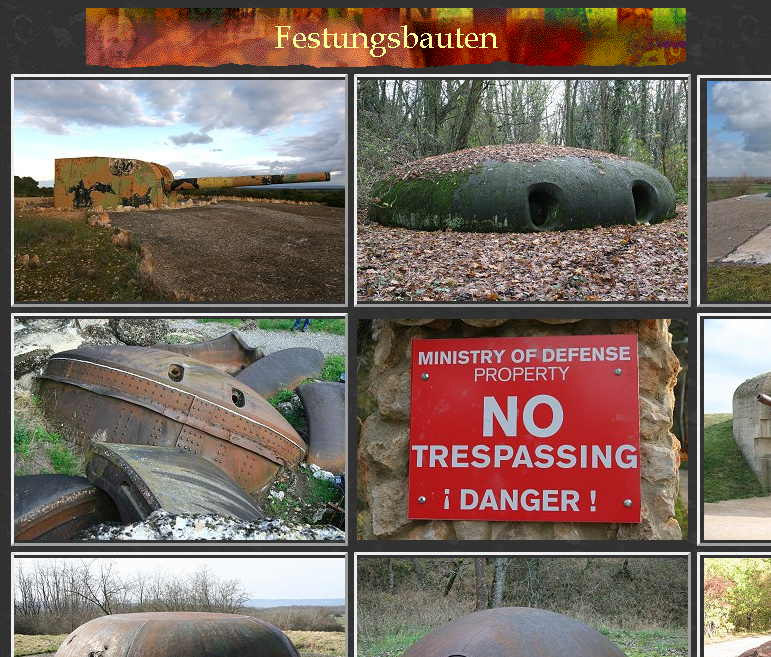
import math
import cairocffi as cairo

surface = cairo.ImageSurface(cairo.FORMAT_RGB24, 771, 657)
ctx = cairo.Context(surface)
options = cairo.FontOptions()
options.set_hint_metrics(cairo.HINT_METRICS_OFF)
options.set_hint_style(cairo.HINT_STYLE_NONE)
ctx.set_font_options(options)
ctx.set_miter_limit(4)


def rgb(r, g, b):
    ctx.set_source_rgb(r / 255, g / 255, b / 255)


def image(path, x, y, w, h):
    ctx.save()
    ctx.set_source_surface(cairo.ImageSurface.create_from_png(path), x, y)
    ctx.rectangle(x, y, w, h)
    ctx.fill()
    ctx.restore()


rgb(255, 255, 255)
ctx.paint()
image('image0.png', 0, 0, 771, 657)
image('image1.png', 86, 8, 600, 60)
rgb(238, 238, 238)
ctx.new_path()
ctx.move_to(11, 74)
ctx.line_to(348, 74)
ctx.line_to(345, 77)
ctx.line_to(14, 77)
ctx.close_path()
ctx.fill()
rgb(159, 159, 159)
ctx.new_path()
ctx.move_to(348, 74)
ctx.line_to(348, 307)
ctx.line_to(345, 304)
ctx.line_to(345, 77)
ctx.close_path()
ctx.fill()
ctx.new_path()
ctx.move_to(348, 307)
ctx.line_to(11, 307)
ctx.line_to(14, 304)
ctx.line_to(345, 304)
ctx.close_path()
ctx.fill()
rgb(238, 238, 238)
ctx.new_path()
ctx.move_to(11, 307)
ctx.line_to(11, 74)
ctx.line_to(14, 77)
ctx.line_to(14, 304)
ctx.close_path()
ctx.fill()
image('image2.png', 14, 80, 331, 221)
ctx.new_path()
ctx.move_to(354, 74)
ctx.line_to(691, 74)
ctx.line_to(688, 77)
ctx.line_to(357, 77)
ctx.close_path()
ctx.fill()
rgb(159, 159, 159)
ctx.new_path()
ctx.move_to(691, 74)
ctx.line_to(691, 307)
ctx.line_to(688, 304)
ctx.line_to(688, 77)
ctx.close_path()
ctx.fill()
ctx.new_path()
ctx.move_to(691, 307)
ctx.line_to(354, 307)
ctx.line_to(357, 304)
ctx.line_to(688, 304)
ctx.close_path()
ctx.fill()
rgb(238, 238, 238)
ctx.new_path()
ctx.move_to(354, 307)
ctx.line_to(354, 74)
ctx.line_to(357, 77)
ctx.line_to(357, 304)
ctx.close_path()
ctx.fill()
image('image3.png', 357, 80, 331, 221)
ctx.new_path()
ctx.move_to(697, 75)
ctx.line_to(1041, 75)
ctx.line_to(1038, 78)
ctx.line_to(700, 78)
ctx.close_path()
ctx.fill()
rgb(159, 159, 159)
ctx.new_path()
ctx.move_to(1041, 307)
ctx.line_to(697, 307)
ctx.line_to(700, 304)
ctx.line_to(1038, 304)
ctx.close_path()
ctx.fill()
rgb(238, 238, 238)
ctx.new_path()
ctx.move_to(697, 307)
ctx.line_to(697, 75)
ctx.line_to(700, 78)
ctx.line_to(700, 304)
ctx.close_path()
ctx.fill()
image('image4.png', 707, 81, 64, 220)
ctx.new_path()
ctx.move_to(11, 313)
ctx.line_to(348, 313)
ctx.line_to(345, 316)
ctx.line_to(14, 316)
ctx.close_path()
ctx.fill()
rgb(159, 159, 159)
ctx.new_path()
ctx.move_to(348, 313)
ctx.line_to(348, 546)
ctx.line_to(345, 543)
ctx.line_to(345, 316)
ctx.close_path()
ctx.fill()
ctx.new_path()
ctx.move_to(348, 546)
ctx.line_to(11, 546)
ctx.line_to(14, 543)
ctx.line_to(345, 543)
ctx.close_path()
ctx.fill()
rgb(238, 238, 238)
ctx.new_path()
ctx.move_to(11, 546)
ctx.line_to(11, 313)
ctx.line_to(14, 316)
ctx.line_to(14, 543)
ctx.close_path()
ctx.fill()
image('image5.png', 14, 319, 331, 221)
image('image6.png', 357, 319, 331, 221)
ctx.new_path()
ctx.move_to(697, 313)
ctx.line_to(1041, 313)
ctx.line_to(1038, 316)
ctx.line_to(700, 316)
ctx.close_path()
ctx.fill()
rgb(159, 159, 159)
ctx.new_path()
ctx.move_to(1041, 546)
ctx.line_to(697, 546)
ctx.line_to(700, 543)
ctx.line_to(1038, 543)
ctx.close_path()
ctx.fill()
rgb(238, 238, 238)
ctx.new_path()
ctx.move_to(697, 546)
ctx.line_to(697, 313)
ctx.line_to(700, 316)
ctx.line_to(700, 543)
ctx.close_path()
ctx.fill()
image('image7.png', 704, 319, 67, 221)
ctx.new_path()
ctx.move_to(11, 552)
ctx.line_to(348, 552)
ctx.line_to(345, 555)
ctx.line_to(14, 555)
ctx.close_path()
ctx.fill()
rgb(159, 159, 159)
ctx.new_path()
ctx.move_to(348, 552)
ctx.line_to(348, 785)
ctx.line_to(345, 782)
ctx.line_to(345, 555)
ctx.close_path()
ctx.fill()
rgb(238, 238, 238)
ctx.new_path()
ctx.move_to(11, 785)
ctx.line_to(11, 552)
ctx.line_to(14, 555)
ctx.line_to(14, 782)
ctx.close_path()
ctx.fill()
image('image8.png', 14, 558, 331, 99)
ctx.new_path()
ctx.move_to(354, 552)
ctx.line_to(691, 552)
ctx.line_to(688, 555)
ctx.line_to(357, 555)
ctx.close_path()
ctx.fill()
rgb(159, 159, 159)
ctx.new_path()
ctx.move_to(691, 552)
ctx.line_to(691, 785)
ctx.line_to(688, 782)
ctx.line_to(688, 555)
ctx.close_path()
ctx.fill()
rgb(238, 238, 238)
ctx.new_path()
ctx.move_to(354, 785)
ctx.line_to(354, 552)
ctx.line_to(357, 555)
ctx.line_to(357, 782)
ctx.close_path()
ctx.fill()
image('image9.png', 357, 558, 331, 99)
ctx.new_path()
ctx.move_to(697, 552)
ctx.line_to(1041, 552)
ctx.line_to(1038, 555)
ctx.line_to(700, 555)
ctx.close_path()
ctx.fill()
ctx.new_path()
ctx.move_to(697, 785)
ctx.line_to(697, 552)
ctx.line_to(700, 555)
ctx.line_to(700, 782)
ctx.close_path()
ctx.fill()
image('image10.png', 704, 558, 67, 99)
surface.write_to_png('render.png')
